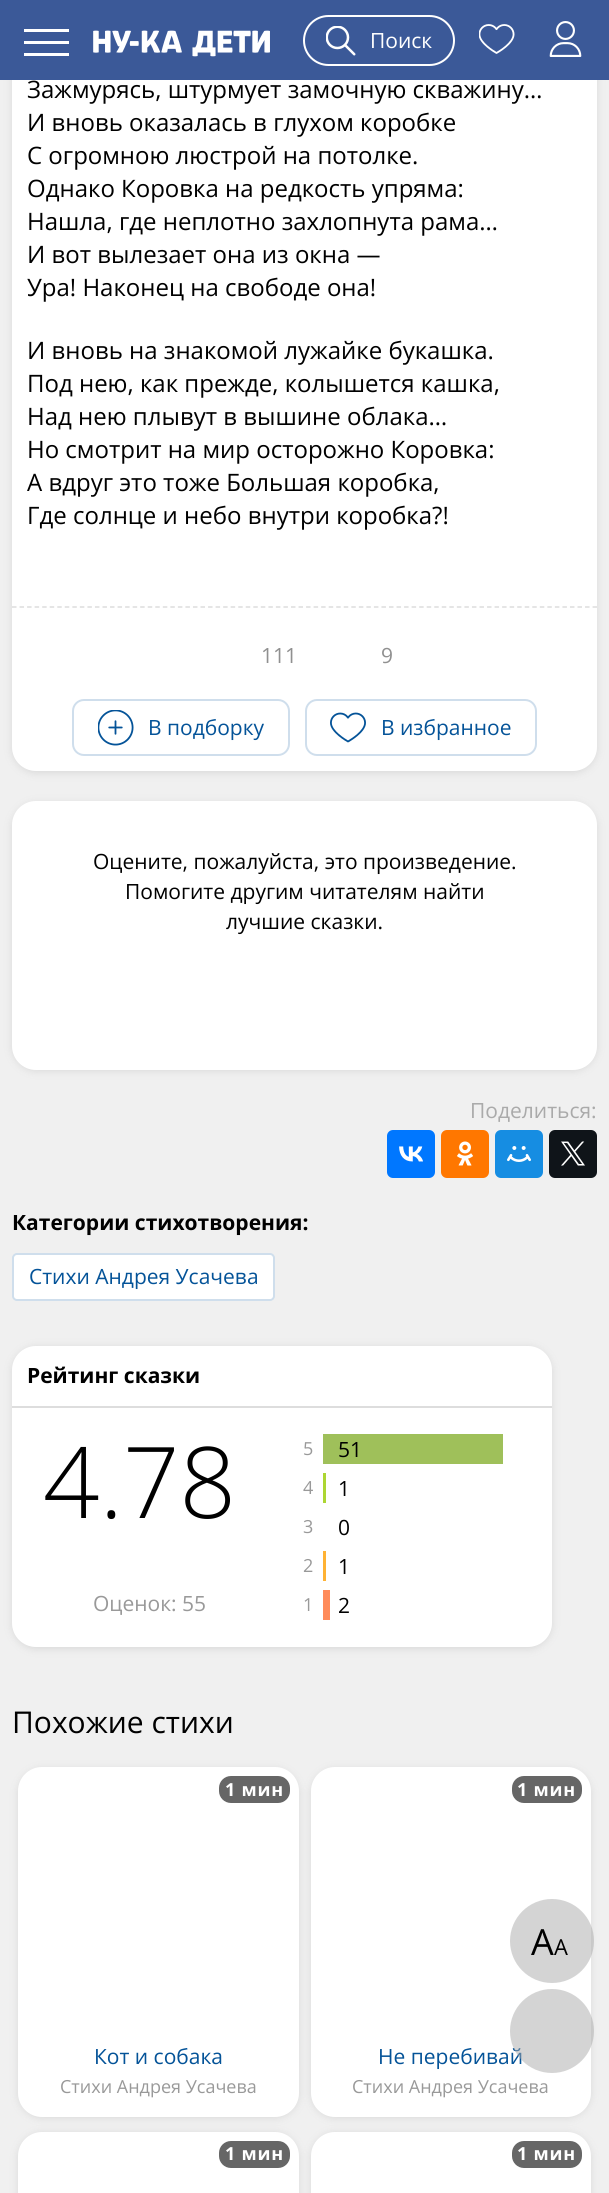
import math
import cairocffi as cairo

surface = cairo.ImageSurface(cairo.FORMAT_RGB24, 609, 2193)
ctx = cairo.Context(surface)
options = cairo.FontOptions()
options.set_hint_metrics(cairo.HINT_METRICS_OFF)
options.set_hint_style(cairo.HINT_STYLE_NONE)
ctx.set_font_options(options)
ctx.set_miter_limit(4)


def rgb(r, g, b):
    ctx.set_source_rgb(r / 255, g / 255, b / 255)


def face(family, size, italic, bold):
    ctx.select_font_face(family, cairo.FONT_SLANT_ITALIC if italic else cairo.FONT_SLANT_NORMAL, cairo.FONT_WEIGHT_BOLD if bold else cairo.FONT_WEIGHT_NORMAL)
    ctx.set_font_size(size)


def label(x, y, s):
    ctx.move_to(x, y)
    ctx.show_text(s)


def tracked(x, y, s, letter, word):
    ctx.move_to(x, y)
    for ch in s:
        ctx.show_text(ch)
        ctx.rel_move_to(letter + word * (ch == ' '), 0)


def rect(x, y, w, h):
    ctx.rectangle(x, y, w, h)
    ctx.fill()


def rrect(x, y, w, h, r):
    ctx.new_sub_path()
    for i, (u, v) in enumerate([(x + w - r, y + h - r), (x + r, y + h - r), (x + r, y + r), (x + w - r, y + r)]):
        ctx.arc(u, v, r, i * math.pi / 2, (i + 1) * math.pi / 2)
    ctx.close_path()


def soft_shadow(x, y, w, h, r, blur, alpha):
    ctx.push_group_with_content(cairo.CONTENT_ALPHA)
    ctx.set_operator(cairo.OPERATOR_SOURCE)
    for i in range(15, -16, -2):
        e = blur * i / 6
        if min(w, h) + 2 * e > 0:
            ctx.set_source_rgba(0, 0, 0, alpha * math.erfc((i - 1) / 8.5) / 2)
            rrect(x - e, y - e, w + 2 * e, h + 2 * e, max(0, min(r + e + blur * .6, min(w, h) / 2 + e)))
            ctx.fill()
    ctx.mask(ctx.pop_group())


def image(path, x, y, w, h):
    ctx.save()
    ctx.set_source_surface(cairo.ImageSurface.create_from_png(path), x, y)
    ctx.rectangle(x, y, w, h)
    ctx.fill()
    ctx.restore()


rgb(240, 240, 240)
ctx.paint()
rgb(217, 217, 217)
soft_shadow(12, -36, 585, 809, 24, 4, 1)
rgb(255, 255, 255)
rrect(12, -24, 585, 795, 24)
ctx.fill()
rgb(59, 89, 152)
rect(0, 0, 609, 80)
rgb(255, 255, 255)
rect(24, 29, 45, 3)
rect(24, 53, 45, 3)
rect(24, 41, 45, 3)
image('image0.png', 93, 30, 177, 27)
rrect(304, 16, 150, 49, 24.5)
ctx.stroke()
image('image1.png', 326, 26, 30, 30)
face('Open Sans', 21, 0, 0)
label(370, 48, 'Поиск')
image('image2.png', 479, 24, 36, 30)
image('image3.png', 549, 21, 33, 36)
face('Open Sans', 24, 0, 0)
rgb(0, 0, 0)
label(27, 98, 'Зажмурясь, штурмует замочную скважину…')
label(27, 131, 'И вновь оказалась в глухом коробке')
label(27, 164, 'С огромною люстрой на потолке.')
label(27, 197, 'Однако Коровка на редкость упряма:')
label(27, 230, 'Нашла, где неплотно захлопнута рама…')
label(27, 263, 'И вот вылезает она из окна —')
label(27, 296, 'Ура! Наконец на свободе она!')
label(27, 359, 'И вновь на знакомой лужайке букашка.')
label(27, 392, 'Под нею, как прежде, колышется кашка,')
label(27, 425, 'Над нею плывут в вышине облака…')
label(27, 458, 'Но смотрит на мир осторожно Коровка:')
label(27, 491, 'А вдруг это тоже Большая коробка,')
label(27, 524, 'Где солнце и небо внутри коробка?!')
ctx.new_path()
ctx.move_to(12, 607)
ctx.line_to(597, 607)
rgb(221, 221, 221)
ctx.set_line_width(1.5)
ctx.set_dash([4.5, 3.04])
ctx.stroke()
face('Open Sans', 21, 0, 0)
rgb(144, 144, 144)
label(261, 663, '111')
label(381, 663, '9')
rrect(73, 700, 216, 55, 11)
rgb(207, 222, 236)
ctx.set_line_width(2)
ctx.set_dash([])
ctx.stroke()
image('image4.png', 98, 710, 36, 36)
rgb(4, 83, 152)
label(148, 735, 'В подборку')
rrect(306, 700, 230, 55, 11)
rgb(207, 222, 236)
ctx.stroke()
image('image5.png', 330, 712, 36, 31)
rgb(4, 83, 152)
label(381, 735, 'В избранное')
rgb(217, 217, 217)
soft_shadow(12, 803, 585, 268, 24, 4, 1)
rgb(255, 255, 255)
rrect(12, 801, 585, 269, 24)
ctx.fill()
rgb(0, 0, 0)
label(93, 869, 'Оцените, пожалуйста, это произведение.')
label(125, 899, 'Помогите другим читателям найти')
label(226, 929, 'лучшие сказки.')
rgb(170, 170, 170)
label(470, 1118, 'Поделиться:')
rgb(0, 119, 255)
rrect(387, 1130, 48, 48, 6)
ctx.fill()
image('image6.png', 399, 1146, 24, 16)
rgb(255, 119, 0)
rrect(441, 1130, 48, 48, 6)
ctx.fill()
image('image7.png', 457, 1141, 16, 25)
rgb(22, 141, 226)
rrect(495, 1130, 48, 48, 6)
ctx.fill()
image('image8.png', 507, 1146, 24, 16)
rgb(15, 20, 25)
rrect(549, 1130, 48, 48, 6)
ctx.fill()
image('image9.png', 561, 1141, 24, 25)
face('Open Sans', 21, 0, 1)
rgb(0, 0, 0)
label(12, 1230, 'Категории стихотворения:')
rgb(255, 255, 255)
rrect(13, 1254, 261, 46, 4)
ctx.fill_preserve()
rgb(207, 222, 236)
ctx.stroke()
face('Open Sans', 21, 0, 0)
rgb(4, 83, 152)
label(29, 1284, 'Стихи Андрея Усачева')
rgb(217, 217, 217)
soft_shadow(12, 1347, 540, 302, 24, 4, 1)
rgb(255, 255, 255)
rrect(12, 1346, 540, 301, 24)
ctx.fill()
rgb(221, 221, 221)
rect(12, 1406, 540, 2)
face('Open Sans', 21, 0, 1)
rgb(0, 0, 0)
label(27, 1383, 'Рейтинг сказки')
face('Open Sans Light', 99, 0, 0)
label(43, 1518, '4.78')
face('Open Sans', 21, 0, 0)
rgb(153, 153, 153)
label(93, 1611, 'Оценок: 55')
face('Open Sans', 18, 0, 0)
label(303, 1455, '5')
rgb(159, 192, 90)
rect(323, 1434, 180, 30)
face('Open Sans', 21, 0, 0)
rgb(0, 0, 0)
label(338, 1457, '51')
face('Open Sans', 18, 0, 0)
rgb(153, 153, 153)
label(303, 1494, '4')
rgb(173, 214, 51)
rect(323, 1473, 3, 30)
face('Open Sans', 21, 0, 0)
rgb(0, 0, 0)
label(338, 1496, '1')
face('Open Sans', 18, 0, 0)
rgb(153, 153, 153)
label(303, 1533, '3')
face('Open Sans', 21, 0, 0)
rgb(0, 0, 0)
label(338, 1535, '0')
face('Open Sans', 18, 0, 0)
rgb(153, 153, 153)
label(303, 1572, '2')
rgb(255, 178, 52)
rect(323, 1551, 3, 30)
face('Open Sans', 21, 0, 0)
rgb(0, 0, 0)
label(338, 1574, '1')
face('Open Sans', 18, 0, 0)
rgb(153, 153, 153)
label(303, 1611, '1')
rgb(255, 139, 90)
rect(323, 1590, 7, 30)
face('Open Sans', 21, 0, 0)
rgb(0, 0, 0)
label(338, 1613, '2')
face('Open Sans', 30, 0, 0)
label(12, 1733, 'Похожие стихи')
rgb(217, 217, 217)
soft_shadow(18, 1769, 281, 349, 24, 4, 1)
rgb(255, 255, 255)
rrect(18, 1767, 281, 350, 24)
ctx.fill()
rgb(102, 102, 102)
rrect(219, 1776, 71, 27, 12)
ctx.fill()
face('Open Sans', 18, 0, 1)
rgb(255, 255, 255)
tracked(225, 1796, '1 мин', 0.75, 0)
face('Open Sans', 21, 0, 0)
rgb(4, 83, 152)
label(94, 2064, 'Кот и собака')
face('Open Sans', 18, 0, 0)
rgb(153, 153, 153)
label(60, 2093, 'Стихи Андрея Усачева')
rgb(217, 217, 217)
soft_shadow(311, 1769, 280, 349, 24, 4, 1)
rgb(255, 255, 255)
rrect(311, 1767, 280, 350, 24)
ctx.fill()
rgb(102, 102, 102)
rrect(512, 1776, 70, 27, 12)
ctx.fill()
face('Open Sans', 18, 0, 1)
rgb(255, 255, 255)
tracked(517, 1796, '1 мин', 0.75, 0)
face('Open Sans', 21, 0, 0)
rgb(4, 83, 152)
label(378, 2064, 'Не перебивай')
face('Open Sans', 18, 0, 0)
rgb(153, 153, 153)
label(352, 2093, 'Стихи Андрея Усачева')
rgb(217, 217, 217)
soft_shadow(18, 2133, 281, 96, 24, 4, 1)
rgb(255, 255, 255)
rrect(18, 2132, 281, 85, 24)
ctx.fill()
rgb(102, 102, 102)
rrect(219, 2141, 71, 27, 12)
ctx.fill()
face('Open Sans', 18, 0, 1)
rgb(255, 255, 255)
tracked(225, 2160, '1 мин', 0.75, 0)
rgb(217, 217, 217)
soft_shadow(311, 2133, 280, 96, 24, 4, 1)
rgb(255, 255, 255)
rrect(311, 2132, 280, 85, 24)
ctx.fill()
rgb(102, 102, 102)
rrect(512, 2141, 70, 27, 12)
ctx.fill()
rgb(255, 255, 255)
tracked(517, 2160, '1 мин', 0.75, 0)
ctx.set_source_rgba(0.667, 0.667, 0.667, 0.5)
ctx.new_path()
ctx.arc(552, 1941, 42, 0, 2 * math.pi)
ctx.fill()
face('Open Sans', 36, 0, 0)
rgb(0, 0, 0)
label(531, 1955, 'А')
face('Open Sans', 22, 0, 0)
label(554, 1955, 'А')
ctx.set_source_rgba(0.667, 0.667, 0.667, 0.5)
ctx.new_path()
ctx.arc(552, 2031, 42, 0, 2 * math.pi)
ctx.fill()
surface.write_to_png('render.png')
